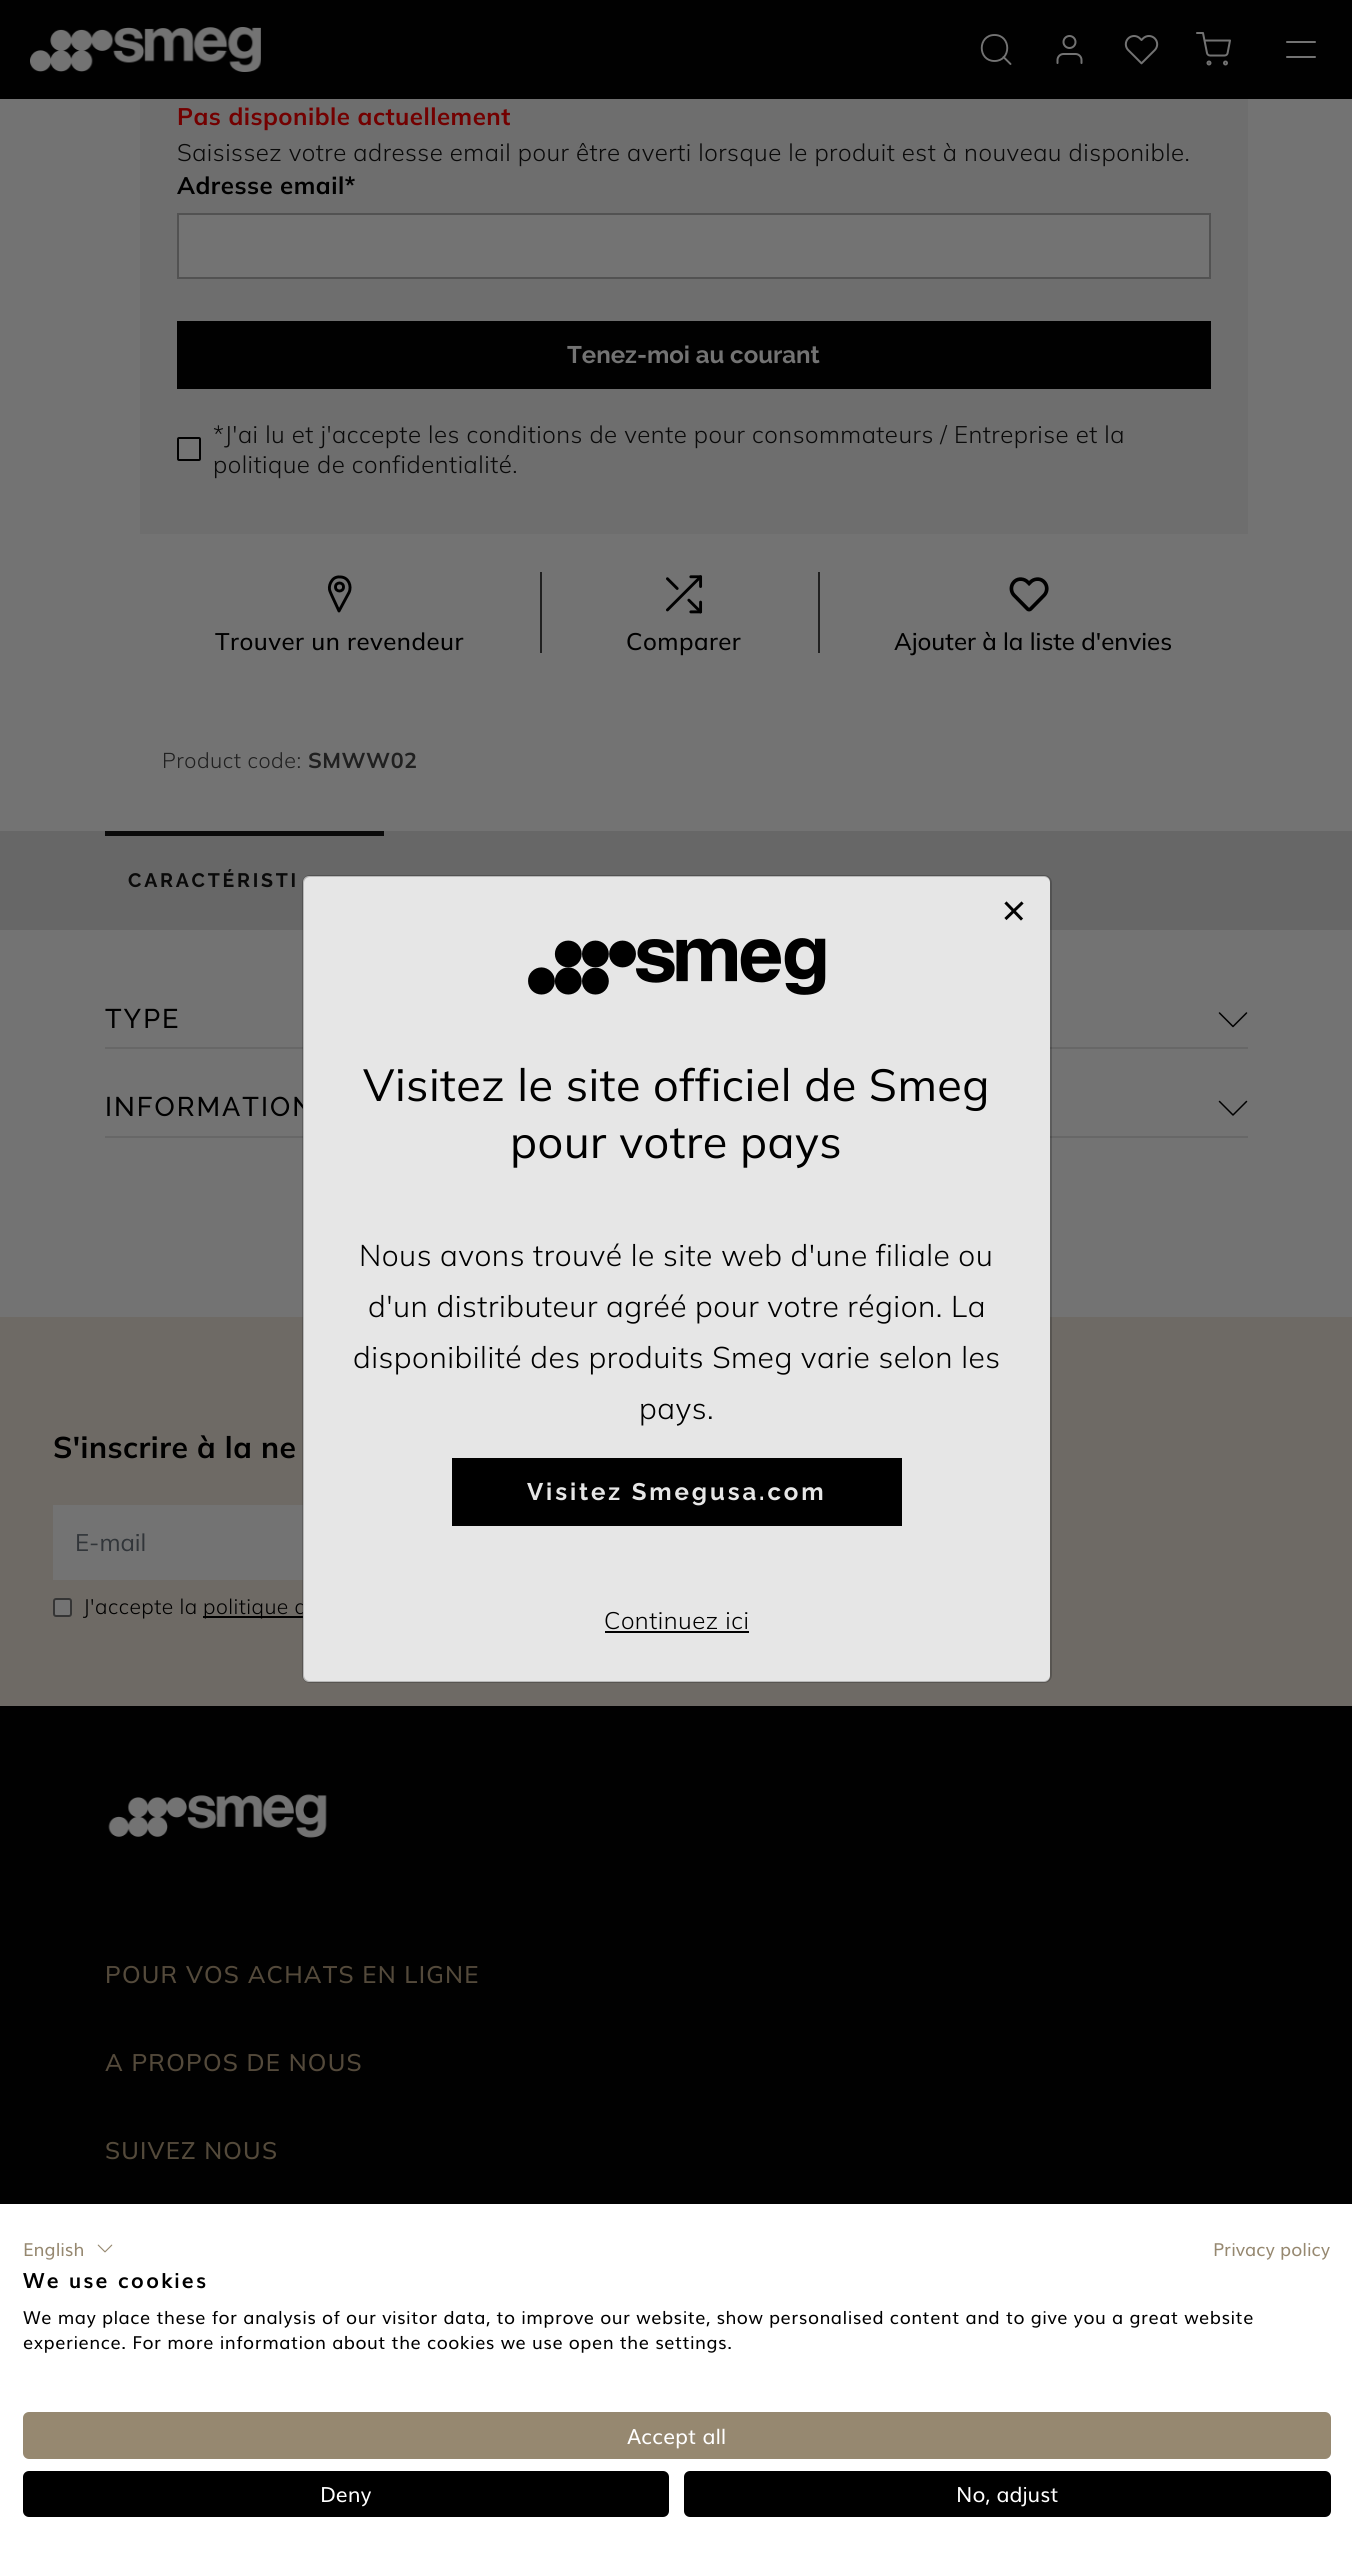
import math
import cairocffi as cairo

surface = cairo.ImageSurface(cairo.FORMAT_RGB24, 1352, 2557)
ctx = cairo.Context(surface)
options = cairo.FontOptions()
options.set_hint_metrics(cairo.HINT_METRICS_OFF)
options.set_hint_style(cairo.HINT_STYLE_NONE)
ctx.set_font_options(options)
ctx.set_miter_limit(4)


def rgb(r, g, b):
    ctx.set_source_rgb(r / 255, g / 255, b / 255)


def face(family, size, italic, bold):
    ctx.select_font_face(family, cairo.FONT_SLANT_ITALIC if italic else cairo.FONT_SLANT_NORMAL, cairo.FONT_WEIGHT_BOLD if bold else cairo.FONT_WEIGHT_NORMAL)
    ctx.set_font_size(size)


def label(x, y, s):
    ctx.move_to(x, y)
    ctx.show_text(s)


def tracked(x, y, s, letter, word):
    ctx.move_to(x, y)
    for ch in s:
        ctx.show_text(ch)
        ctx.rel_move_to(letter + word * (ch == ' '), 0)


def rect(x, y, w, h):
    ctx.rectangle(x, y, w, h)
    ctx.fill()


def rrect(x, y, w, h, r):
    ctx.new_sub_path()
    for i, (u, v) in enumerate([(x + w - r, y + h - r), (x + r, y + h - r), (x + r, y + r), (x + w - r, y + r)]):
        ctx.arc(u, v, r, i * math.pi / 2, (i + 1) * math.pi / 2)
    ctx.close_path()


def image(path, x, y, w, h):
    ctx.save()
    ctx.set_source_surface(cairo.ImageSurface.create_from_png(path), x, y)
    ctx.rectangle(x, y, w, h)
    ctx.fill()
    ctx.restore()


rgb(115, 115, 115)
ctx.paint()
rgb(1, 1, 1)
rect(0, 0, 1352, 99)
image('image0.png', 30, 27, 231, 45)
ctx.new_path()
ctx.move_to(994.5, 61)
ctx.curve_to(1011.5, 61, 1011.5, 35, 994.5, 35)
ctx.curve_to(977.5, 35, 977.5, 61, 994.5, 61)
ctx.close_path()
ctx.move_to(1010.5, 64)
ctx.line_to(1003.5, 57)
rgb(115, 115, 115)
ctx.set_line_width(1.9)
ctx.set_line_cap(cairo.LINE_CAP_ROUND)
ctx.set_line_join(cairo.LINE_JOIN_ROUND)
ctx.stroke()
image('image1.png', 1056, 35, 27, 29)
image('image2.png', 1124, 35, 35, 30)
image('image3.png', 1196, 32, 35, 34)
rrect(1286, 41, 30, 2, 1)
ctx.fill()
rrect(1286, 56, 30, 2, 1)
ctx.fill()
rgb(110, 110, 110)
rect(140, 99, 1108, 435)
face('Mulish', 24, 0, 1)
rgb(115, 0, 0)
tracked(177, 125, 'Pas disponible actuellement', 0.48, 0)
face('Mulish Light', 24, 0, 0)
rgb(10, 10, 10)
tracked(177, 161, 'Saisissez votre adresse email pour être averti lorsque le produit est à nouveau disponible.', 0.48, 0)
face('Mulish', 24, 0, 1)
rgb(0, 0, 0)
tracked(177, 194, 'Adresse email*', 0.48, 0)
rgb(115, 115, 115)
ctx.rectangle(178, 214, 1032, 64)
ctx.fill_preserve()
rgb(82, 82, 82)
ctx.set_line_width(2)
ctx.set_line_cap(cairo.LINE_CAP_BUTT)
ctx.set_line_join(cairo.LINE_JOIN_MITER)
ctx.stroke()
rgb(1, 1, 1)
rect(177, 321, 1034, 68)
face('Raleway', 24, 0, 1)
rgb(115, 115, 115)
label(567, 363, 'Tenez-moi au courant')
rrect(178, 438, 22, 22, 1)
ctx.fill_preserve()
rgb(1, 1, 1)
ctx.stroke()
face('Mulish Light', 24, 0, 0)
rgb(10, 10, 10)
tracked(213, 443, '*J\'ai lu et j\'accepte les conditions de vente pour consommateurs / Entreprise et la', 0.48, 0)
tracked(213, 473, 'politique de confidentialité.', 0.48, 0)
rgb(32, 32, 32)
rect(540, 572, 2, 81)
ctx.new_path()
ctx.move_to(341, 577)
ctx.curve_to(348.5, 577.5, 352, 586, 349, 592.5)
ctx.line_to(339, 611)
ctx.line_to(332.5, 597)
ctx.curve_to(331.5, 594.5, 330, 592, 329.5, 589.5)
ctx.curve_to(329, 586.5, 330, 583, 332, 580.5)
ctx.curve_to(334, 577.5, 337.5, 576.5, 341, 577)
ctx.close_path()
rgb(0, 0, 0)
ctx.set_line_width(2.9)
ctx.set_line_cap(cairo.LINE_CAP_ROUND)
ctx.set_line_join(cairo.LINE_JOIN_ROUND)
ctx.stroke()
ctx.arc(339.5, 587, 4, 0, 2 * math.pi)
ctx.set_line_cap(cairo.LINE_CAP_BUTT)
ctx.set_line_join(cairo.LINE_JOIN_MITER)
ctx.stroke()
face('Mulish Medium', 24, 0, 0)
tracked(215, 650, 'Trouver un revendeur', 0.48, 0)
image('image4.png', 666, 575, 37, 39)
tracked(626, 650, 'Comparer', 0.48, 0)
rgb(32, 32, 32)
rect(818, 572, 2, 81)
image('image5.png', 1009, 577, 40, 35)
rgb(0, 0, 0)
label(894, 650, 'Ajouter à la liste d\'envies')
face('Mulish Light', 21.5, 0, 0)
rgb(32, 32, 32)
tracked(162, 768, 'Product code:', 0.48, 0)
face('Mulish', 21.5, 0, 1)
tracked(308, 768, 'SMWW02', 0.48, 0)
rgb(103, 103, 103)
rect(0, 831, 1352, 99)
rgb(10, 10, 10)
rect(105, 831, 279, 5)
face('Raleway', 19.5, 0, 1)
tracked(128, 887, 'CARACTÉRISTI', 2.75, 0)
rgb(103, 103, 103)
rect(105, 1047, 1143, 2)
face('Raleway Medium', 27, 0, 0)
rgb(0, 0, 0)
tracked(105, 1028, 'TYPE', 2, 0)
ctx.new_path()
ctx.move_to(1219.5, 1013)
ctx.line_to(1233, 1026.5)
ctx.line_to(1246.5, 1013)
ctx.set_line_width(1.5)
ctx.set_line_cap(cairo.LINE_CAP_ROUND)
ctx.set_line_join(cairo.LINE_JOIN_ROUND)
ctx.stroke()
rgb(103, 103, 103)
rect(105, 1136, 1143, 2)
rgb(0, 0, 0)
tracked(105, 1116, 'INFORMATION', 2, 0)
ctx.new_path()
ctx.move_to(1219.5, 1101.5)
ctx.line_to(1233, 1115)
ctx.line_to(1246.5, 1101.5)
ctx.stroke()
rgb(110, 106, 101)
rect(0, 1317, 1352, 389)
face('Mulish', 30, 0, 1)
rgb(0, 0, 0)
tracked(53, 1458, 'S\'inscrire à la ne', 0.48, 0)
rgb(115, 115, 115)
rect(53, 1505, 250, 75)
face('Mulish', 24, 0, 0)
rgb(49, 53, 57)
label(75, 1551, 'E-mail')
rgb(115, 115, 115)
rrect(54, 1599, 17, 17, 2)
ctx.fill_preserve()
rgb(53, 53, 53)
ctx.set_line_width(2)
ctx.set_line_cap(cairo.LINE_CAP_BUTT)
ctx.set_line_join(cairo.LINE_JOIN_MITER)
ctx.stroke()
face('Mulish Light', 21, 0, 0)
rgb(0, 0, 0)
tracked(83, 1614, 'J\'accepte la', 0.48, 0)
rgb(1, 1, 1)
rect(203, 1616, 100, 2)
rgb(0, 0, 0)
tracked(203, 1614, 'politique d', 0.48, 0)
rgb(1, 1, 1)
rect(0, 1706, 1352, 498)
image('image6.png', 108, 1794, 219, 44)
face('Mulish Medium', 24, 0, 0)
rgb(84, 74, 59)
tracked(105, 1983, 'POUR VOS ACHATS EN LIGNE', 1.2, 0)
tracked(105, 2071, 'A PROPOS DE NOUS', 1.2, 0)
tracked(105, 2159, 'SUIVEZ NOUS', 1.2, 0)
rgb(230, 230, 230)
rrect(303, 876, 747, 806, 6)
ctx.fill()
rrect(303, 876, 748, 806, 7)
ctx.set_source_rgba(0, 0, 0, 0.2)
ctx.stroke()
ctx.new_path()
ctx.move_to(1006.5, 903.5)
ctx.line_to(1021, 918.5)
ctx.move_to(1006.5, 918)
ctx.line_to(1021.5, 903.5)
rgb(2, 2, 2)
ctx.set_line_width(3)
ctx.set_line_cap(cairo.LINE_CAP_SQUARE)
ctx.stroke()
image('image7.png', 528, 938, 298, 57)
face('Mulish', 45, 0, 0)
rgb(0, 0, 0)
tracked(363, 1101, 'Visitez le site officiel de Smeg', 0.48, 0)
tracked(510, 1158, 'pour votre pays', 0.48, 0)
face('Mulish Light', 30, 0, 0)
tracked(359, 1266, 'Nous avons trouvé le site web d\'une filiale ou', 0.48, 0)
tracked(368, 1317, 'd\'un distributeur agréé pour votre région. La', 0.48, 0)
tracked(353, 1368, 'disponibilité des produits Smeg varie selon les', 0.48, 0)
tracked(639, 1419, 'pays.', 0.48, 0)
ctx.rectangle(453, 1459, 448, 66)
ctx.fill_preserve()
rgb(2, 2, 2)
ctx.set_line_width(2)
ctx.set_line_cap(cairo.LINE_CAP_BUTT)
ctx.stroke()
face('Raleway', 24, 0, 1)
rgb(230, 230, 230)
tracked(527, 1500, 'Visitez Smegusa.com', 2.9, 0)
face('Mulish Light', 24, 0, 0)
rgb(0, 0, 0)
tracked(604, 1629, 'Continuez ici', 0.48, 0)
rgb(2, 2, 2)
rect(605, 1631, 144, 2)
rgb(255, 255, 255)
rect(0, 2204, 1352, 353)
face('Muli', 18, 0, 0)
rgb(150, 136, 112)
label(23, 2256, 'English')
image('image8.png', 97, 2244, 16, 9)
label(1213, 2256, 'Privacy policy')
face('Muli', 21, 0, 1)
rgb(0, 0, 0)
tracked(23, 2288, 'We use cookies', 2, 0)
face('Muli', 18, 0, 0)
tracked(23, 2324, 'We may place these for analysis of our visitor data, to improve our website, show personalised content and to give you a great website', 0.48, 0)
tracked(23, 2349, 'experience. For more information about the cookies we use open the settings.', 0.48, 0)
rgb(150, 136, 112)
rrect(24, 2413, 1306, 45, 5)
ctx.fill_preserve()
ctx.stroke()
face('Muli', 21, 0, 0)
rgb(255, 255, 255)
label(627, 2444, 'Accept all')
rgb(0, 0, 0)
rrect(24, 2472, 644, 44, 5)
ctx.fill_preserve()
ctx.stroke()
rgb(255, 255, 255)
label(320, 2502, 'Deny')
rgb(0, 0, 0)
rrect(685, 2472, 645, 44, 5)
ctx.fill_preserve()
ctx.stroke()
rgb(255, 255, 255)
label(956, 2502, 'No, adjust')
surface.write_to_png('render.png')
